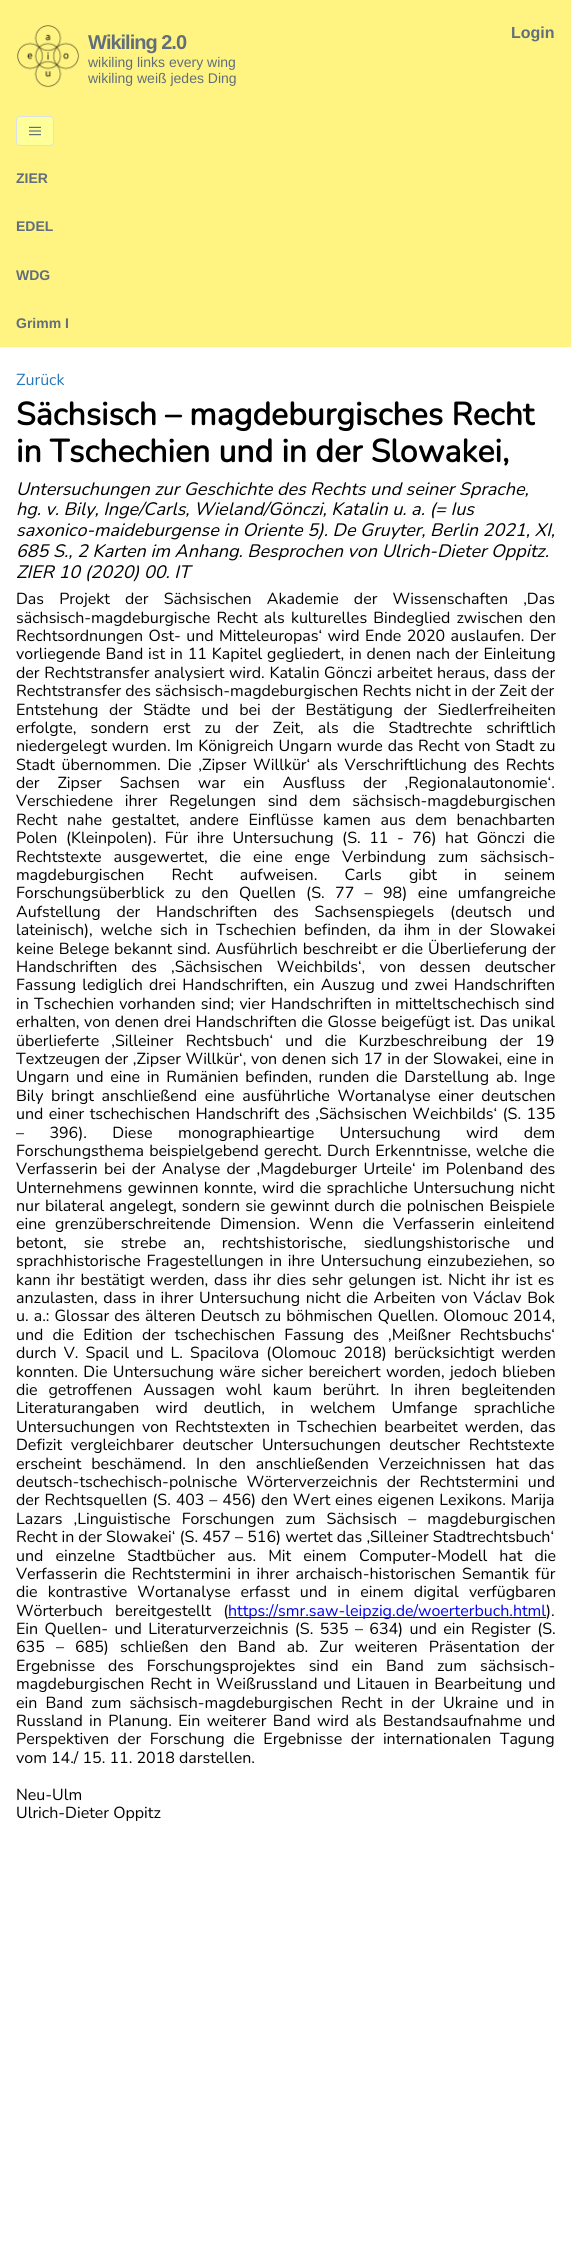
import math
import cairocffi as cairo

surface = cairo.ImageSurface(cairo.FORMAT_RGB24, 571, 2259)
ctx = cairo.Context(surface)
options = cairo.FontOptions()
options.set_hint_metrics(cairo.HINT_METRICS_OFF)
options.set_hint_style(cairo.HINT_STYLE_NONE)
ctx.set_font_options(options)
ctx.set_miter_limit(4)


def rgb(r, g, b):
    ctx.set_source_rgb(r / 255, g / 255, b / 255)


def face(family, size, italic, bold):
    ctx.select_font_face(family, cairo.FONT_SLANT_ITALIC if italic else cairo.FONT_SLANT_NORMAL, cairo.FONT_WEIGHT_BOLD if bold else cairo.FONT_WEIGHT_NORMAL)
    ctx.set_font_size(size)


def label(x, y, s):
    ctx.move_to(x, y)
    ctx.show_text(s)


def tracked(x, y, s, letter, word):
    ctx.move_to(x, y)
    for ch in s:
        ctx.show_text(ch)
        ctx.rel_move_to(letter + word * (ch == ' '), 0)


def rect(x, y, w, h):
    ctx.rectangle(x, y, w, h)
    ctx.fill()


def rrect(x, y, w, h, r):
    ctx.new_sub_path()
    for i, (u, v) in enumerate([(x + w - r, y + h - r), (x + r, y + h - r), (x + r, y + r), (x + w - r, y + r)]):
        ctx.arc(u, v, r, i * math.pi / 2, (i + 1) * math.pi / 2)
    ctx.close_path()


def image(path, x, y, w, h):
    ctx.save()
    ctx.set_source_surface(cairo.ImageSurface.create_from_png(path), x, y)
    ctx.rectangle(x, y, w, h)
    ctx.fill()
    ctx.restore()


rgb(255, 243, 130)
ctx.paint()
image('image0.png', 17, 25, 63, 63)
face('Liberation Sans', 20, 0, 1)
rgb(96, 111, 123)
tracked(88, 49, 'Wikiling 2.0', -1, 0)
face('Liberation Sans', 14, 0, 0)
label(88, 67, 'wikiling links every wing')
label(88, 83, 'wikiling weiß jedes Ding')
face('Liberation Sans', 16, 0, 1)
label(511, 38, 'Login')
rgb(255, 255, 153)
rrect(16.5, 116.5, 37, 29, 3.5)
ctx.fill_preserve()
rgb(218, 225, 231)
ctx.set_line_width(1)
ctx.stroke()
image('image1.png', 29, 126, 12, 10)
face('Liberation Sans', 14, 0, 1)
rgb(96, 111, 123)
label(16, 183, 'ZIER')
label(16, 231, 'EDEL')
label(16, 280, 'WDG')
label(16, 328, 'Grimm I')
rgb(255, 255, 255)
rect(0, 347, 571, 1912)
face('Nunito ExtraLight', 16, 0, 0)
rgb(39, 121, 189)
label(16, 385, 'Zurück')
face('Nunito', 32, 0, 1)
rgb(0, 0, 0)
label(16, 425, 'Sächsisch – magdeburgisches Recht')
label(16, 462, 'in Tschechien und in der Slowakei,')
face('Nunito ExtraLight', 18, 1, 0)
label(16, 495, 'Untersuchungen zur Geschichte des Rechts und seiner Sprache,')
label(16, 515, 'hg. v. Bily, Inge/Carls, Wieland/Gönczi, Katalin u. a. (= Ius')
label(16, 536, 'saxonico-maideburgense in Oriente 5). De Gruyter, Berlin 2021, XI,')
label(16, 557, '685 S., 2 Karten im Anhang. Besprochen von Ulrich-Dieter Oppitz.')
label(16, 578, 'ZIER 10 (2020) 00. IT')
face('Nunito ExtraLight', 16, 0, 0)
tracked(16, 604, 'Das Projekt der Sächsischen Akademie der Wissenschaften ‚Das', 0, 11)
tracked(16, 623, 'sächsisch-magdeburgische Recht als kulturelles Bindeglied zwischen den', 0, 2)
tracked(16, 641, 'Rechtsordnungen Ost- und Mitteleuropas‘ wird Ende 2020 auslaufen. Der', 0, 1.25)
tracked(16, 659, 'vorliegende Band ist in 11 Kapitel gegliedert, in denen nach der Einleitung', 0, 0.75)
tracked(16, 678, 'der Rechtstransfer analysiert wird. Katalin Gönczi arbeitet heraus, dass der', 0, 0.5)
label(16, 696, 'Rechtstransfer des sächsisch-magdeburgischen Rechts nicht in der Zeit der')
tracked(16, 715, 'Entstehung der Städte und bei der Bestätigung der Siedlerfreiheiten', 0, 6.5)
tracked(16, 733, 'erfolgte, sondern erst zu der Zeit, als die Stadtrechte schriftlich', 0, 10)
tracked(16, 751, 'niedergelegt wurden. Im Königreich Ungarn wurde das Recht von Stadt zu', 0, 0.75)
tracked(16, 770, 'Stadt übernommen. Die ‚Zipser Willkür‘ als Verschriftlichung des Rechts', 0, 2.6)
tracked(16, 788, 'der Zipser Sachsen war ein Ausfluss der ‚Regionalautonomie‘.', 0, 13.75)
tracked(16, 806, 'Verschiedene ihrer Regelungen sind dem sächsisch-magdeburgischen', 0, 7.5)
tracked(16, 825, 'Recht nahe gestaltet, andere Einflüsse kamen aus dem benachbarten', 0, 5.5)
tracked(16, 843, 'Polen (Kleinpolen). Für ihre Untersuchung (S. 11 - 76) hat Gönczi die', 0, 4.4)
tracked(16, 862, 'Rechtstexte ausgewertet, die eine enge Verbindung zum sächsisch-', 0, 7.75)
tracked(16, 880, 'magdeburgischen Recht aufweisen. Carls gibt in seinem', 0, 23)
tracked(16, 898, 'Forschungsüberblick zu den Quellen (S. 77 – 98) eine umfangreiche', 0, 6.25)
tracked(16, 917, 'Aufstellung der Handschriften des Sachsenspiegels (deutsch und', 0, 11.75)
tracked(16, 935, 'lateinisch), welche sich in Tschechien befinden, da ihm in der Slowakei', 0, 3.6)
tracked(16, 954, 'keine Belege bekannt sind. Ausführlich beschreibt er die Überlieferung der', 0, 0.75)
tracked(16, 972, 'Handschriften des ‚Sächsischen Weichbilds‘, von dessen deutscher', 0, 10)
tracked(16, 990, 'Fassung lediglich drei Handschriften, ein Auszug und zwei Handschriften', 0, 2)
tracked(16, 1009, 'in Tschechien vorhanden sind; vier Handschriften in mitteltschechisch sind', 0, 1)
tracked(16, 1027, 'erhalten, von denen drei Handschriften die Glosse beigefügt ist. Das unikal', 0, 0.4)
tracked(16, 1046, 'überlieferte ‚Silleiner Rechtsbuch‘ und die Kurzbeschreibung der 19', 0, 8)
tracked(16, 1064, 'Textzeugen der ‚Zipser Willkür‘, von denen sich 17 in der Slowakei, eine in', 0, 0.5)
tracked(16, 1082, 'Ungarn und eine in Rumänien befinden, runden die Darstellung ab. Inge', 0, 2.6)
tracked(16, 1101, 'Bily bringt anschließend eine ausführliche Wortanalyse einer deutschen', 0, 3.5)
tracked(16, 1119, 'und einer tschechischen Handschrift des ‚Sächsischen Weichbilds‘ (S. 135', 0, 1.25)
tracked(16, 1138, '– 396). Diese monographieartige Untersuchung wird dem', 0, 21.25)
tracked(16, 1156, 'Forschungsthema beispielgebend gerecht. Durch Erkenntnisse, welche die', 0, 1)
tracked(16, 1174, 'Verfasserin bei der Analyse der ‚Magdeburger Urteile‘ im Polenband des', 0, 2.25)
tracked(16, 1193, 'Unternehmens gewinnen konnte, wird die sprachliche Untersuchung nicht', 0, 1.25)
tracked(16, 1211, 'nur bilateral angelegt, sondern sie gewinnt durch die polnischen Beispiele', 0, 1)
tracked(16, 1229, 'eine grenzüberschreitende Dimension. Wenn die Verfasserin einleitend', 0, 5)
tracked(16, 1248, 'betont, sie strebe an, rechtshistorische, siedlungshistorische und', 0, 13)
tracked(16, 1266, 'sprachhistorische Fragestellungen in ihre Untersuchung einzubeziehen, so', 0, 1.5)
tracked(16, 1285, 'kann ihr bestätigt werden, dass ihr dies sehr gelungen ist. Nicht ihr ist es', 0, 1.5)
tracked(16, 1303, 'anzulasten, dass in ihrer Untersuchung nicht die Arbeiten von Václav Bok', 0, 1.5)
tracked(16, 1321, 'u. a.: Glossar des älteren Deutsch zu böhmischen Quellen. Olomouc 2014,', 0, 0.9)
tracked(16, 1340, 'und die Edition der tschechischen Fassung des ‚Meißner Rechtsbuchs‘', 0, 5)
tracked(16, 1358, 'durch V. Spacil und L. Spacilova (Olomouc 2018) berücksichtigt werden', 0, 3)
tracked(16, 1377, 'konnten. Die Untersuchung wäre sicher bereichert worden, jedoch blieben', 0, 1.25)
tracked(16, 1395, 'die getroffenen Aussagen wohl kaum berührt. In ihren begleitenden', 0, 6.75)
tracked(16, 1413, 'Literaturangaben wird deutlich, in welchem Umfange sprachliche', 0, 12)
tracked(16, 1432, 'Untersuchungen von Rechtstexten in Tschechien bearbeitet werden, das', 0, 3)
tracked(16, 1450, 'Defizit vergleichbarer deutscher Untersuchungen deutscher Rechtstexte', 0, 4.5)
tracked(16, 1469, 'erscheint beschämend. In den anschließenden Verzeichnissen hat das', 0, 5.75)
tracked(16, 1487, 'deutsch-tschechisch-polnische Wörterverzeichnis der Rechtstermini und', 0, 5)
tracked(16, 1505, 'der Rechtsquellen (S. 403 – 456) den Wert eines eigenen Lexikons. Marija', 0, 0.75)
tracked(16, 1524, 'Lazars ‚Linguistische Forschungen zum Sächsisch – magdeburgischen', 0, 7)
label(16, 1542, 'Recht in der Slowakei‘ (S. 457 – 516) wertet das ‚Silleiner Stadtrechtsbuch‘')
tracked(16, 1561, 'und einzelne Stadtbücher aus. Mit einem Computer-Modell hat die', 0, 8)
tracked(16, 1579, 'Verfasserin die Rechtstermini in ihrer archaisch-historischen Semantik für', 0, 2.25)
tracked(16, 1597, 'die kontrastive Wortanalyse erfasst und in einem digital verfügbaren', 0, 6)
tracked(16, 1616, 'Wörterbuch bereitgestellt (', 0, 8)
rgb(0, 0, 238)
rect(228, 1617, 318, 1)
label(228, 1616, 'https://smr.saw-leipzig.de/woerterbuch.html')
rgb(0, 0, 0)
label(546, 1616, ').')
tracked(16, 1634, 'Ein Quellen- und Literaturverzeichnis (S. 535 – 634) und ein Register (S.', 0, 2.25)
tracked(16, 1652, '635 – 685) schließen den Band ab. Zur weiteren Präsentation der', 0, 7)
tracked(16, 1671, 'Ergebnisse des Forschungsprojektes sind ein Band zum sächsisch-', 0, 9)
tracked(16, 1689, 'magdeburgischen Recht in Weißrussland und Litauen in Bearbeitung und', 0, 1.75)
tracked(16, 1708, 'ein Band zum sächsisch-magdeburgischen Recht in der Ukraine und in', 0, 4)
tracked(16, 1726, 'Russland in Planung. Ein weiterer Band wird als Bestandsaufnahme und', 0, 2.25)
tracked(16, 1744, 'Perspektiven der Forschung die Ergebnisse der internationalen Tagung', 0, 4.4)
label(16, 1763, 'vom 14./ 15. 11. 2018 darstellen.')
label(16, 1800, 'Neu-Ulm')
label(16, 1818, 'Ulrich-Dieter Oppitz')
surface.write_to_png('render.png')
